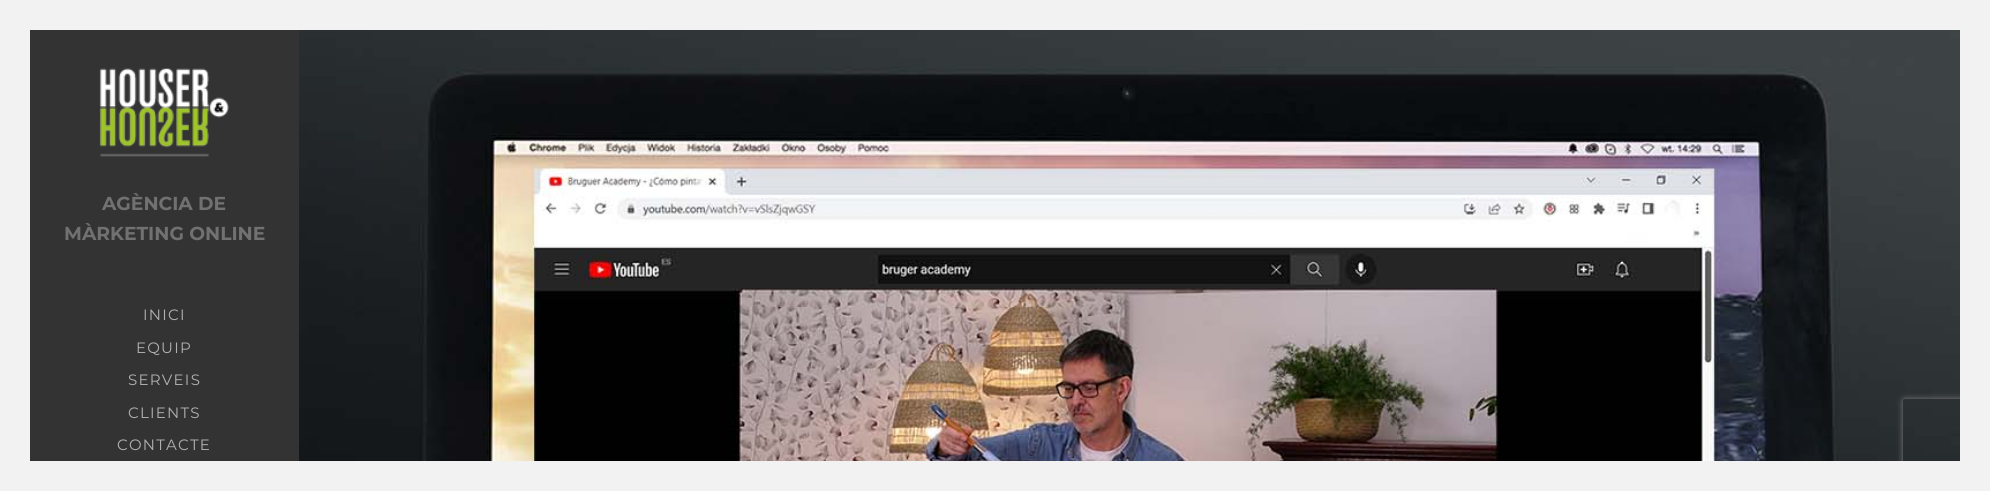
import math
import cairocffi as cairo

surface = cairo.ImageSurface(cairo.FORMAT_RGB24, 1990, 491)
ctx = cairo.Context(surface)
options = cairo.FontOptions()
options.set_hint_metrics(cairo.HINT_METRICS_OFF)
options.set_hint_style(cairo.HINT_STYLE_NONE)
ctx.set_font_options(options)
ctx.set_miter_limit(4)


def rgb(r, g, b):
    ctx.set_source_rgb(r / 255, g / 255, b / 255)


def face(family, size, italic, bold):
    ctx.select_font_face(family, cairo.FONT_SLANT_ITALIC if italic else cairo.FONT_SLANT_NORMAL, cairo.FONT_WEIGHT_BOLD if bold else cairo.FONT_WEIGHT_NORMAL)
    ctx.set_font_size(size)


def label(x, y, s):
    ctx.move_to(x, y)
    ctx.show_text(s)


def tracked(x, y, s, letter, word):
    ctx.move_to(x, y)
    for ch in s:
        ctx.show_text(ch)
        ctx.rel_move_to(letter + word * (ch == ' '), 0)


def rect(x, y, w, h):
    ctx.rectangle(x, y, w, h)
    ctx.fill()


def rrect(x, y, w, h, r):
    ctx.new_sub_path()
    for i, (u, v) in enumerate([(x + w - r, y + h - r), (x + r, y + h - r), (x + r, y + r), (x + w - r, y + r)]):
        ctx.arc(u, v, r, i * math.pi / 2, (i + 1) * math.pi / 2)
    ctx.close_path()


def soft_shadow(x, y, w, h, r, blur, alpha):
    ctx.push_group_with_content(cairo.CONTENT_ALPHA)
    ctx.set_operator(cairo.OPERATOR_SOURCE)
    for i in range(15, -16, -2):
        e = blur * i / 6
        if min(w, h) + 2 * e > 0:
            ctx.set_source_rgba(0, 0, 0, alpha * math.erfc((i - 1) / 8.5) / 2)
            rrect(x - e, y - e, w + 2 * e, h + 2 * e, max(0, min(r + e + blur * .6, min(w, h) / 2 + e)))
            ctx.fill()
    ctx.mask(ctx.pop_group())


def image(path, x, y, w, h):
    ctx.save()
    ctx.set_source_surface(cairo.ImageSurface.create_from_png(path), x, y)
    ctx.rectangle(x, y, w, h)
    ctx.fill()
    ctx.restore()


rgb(255, 255, 255)
ctx.paint()
rgb(242, 242, 242)
rect(0, 0, 30, 491)
rect(30, 0, 1960, 30)
rgb(51, 51, 51)
rect(30, 30, 269, 431)
image('image0.png', 99, 68, 130, 89)
face('Montserrat', 18.75, 0, 1)
rgb(113, 113, 113)
label(102, 210, 'AGÈNCIA DE')
label(64, 240, 'MÀRKETING ONLINE')
face('Montserrat', 15, 0, 0)
rgb(177, 177, 177)
tracked(143, 320, 'INICI', 1.25, 0)
tracked(136, 353, 'EQUIP', 1.25, 0)
tracked(128, 385, 'SERVEIS', 1.25, 0)
tracked(128, 418, 'CLIENTS', 1.25, 0)
tracked(117, 450, 'CONTACTE', 1.25, 0)
image('image1.png', 299, 30, 1661, 431)
ctx.save()
ctx.set_fill_rule(cairo.FILL_RULE_EVEN_ODD)
ctx.new_path()
ctx.move_to(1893, 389)
ctx.line_to(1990, 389)
ctx.line_to(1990, 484)
ctx.line_to(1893, 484)
ctx.close_path()
ctx.move_to(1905.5, 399)
ctx.line_to(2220.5, 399)
ctx.curve_to(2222, 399, 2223, 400, 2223, 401.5)
ctx.line_to(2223, 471.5)
ctx.curve_to(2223, 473, 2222, 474, 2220.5, 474)
ctx.line_to(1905.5, 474)
ctx.curve_to(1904, 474, 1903, 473, 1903, 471.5)
ctx.line_to(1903, 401.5)
ctx.curve_to(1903, 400, 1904, 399, 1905.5, 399)
ctx.close_path()
ctx.clip()
rgb(128, 128, 128)
soft_shadow(1903, 399, 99, 75, 2.5, 3, 1)
ctx.restore()
rgb(242, 242, 242)
rect(1960, 30, 30, 431)
rect(30, 461, 1960, 30)
surface.write_to_png('render.png')
